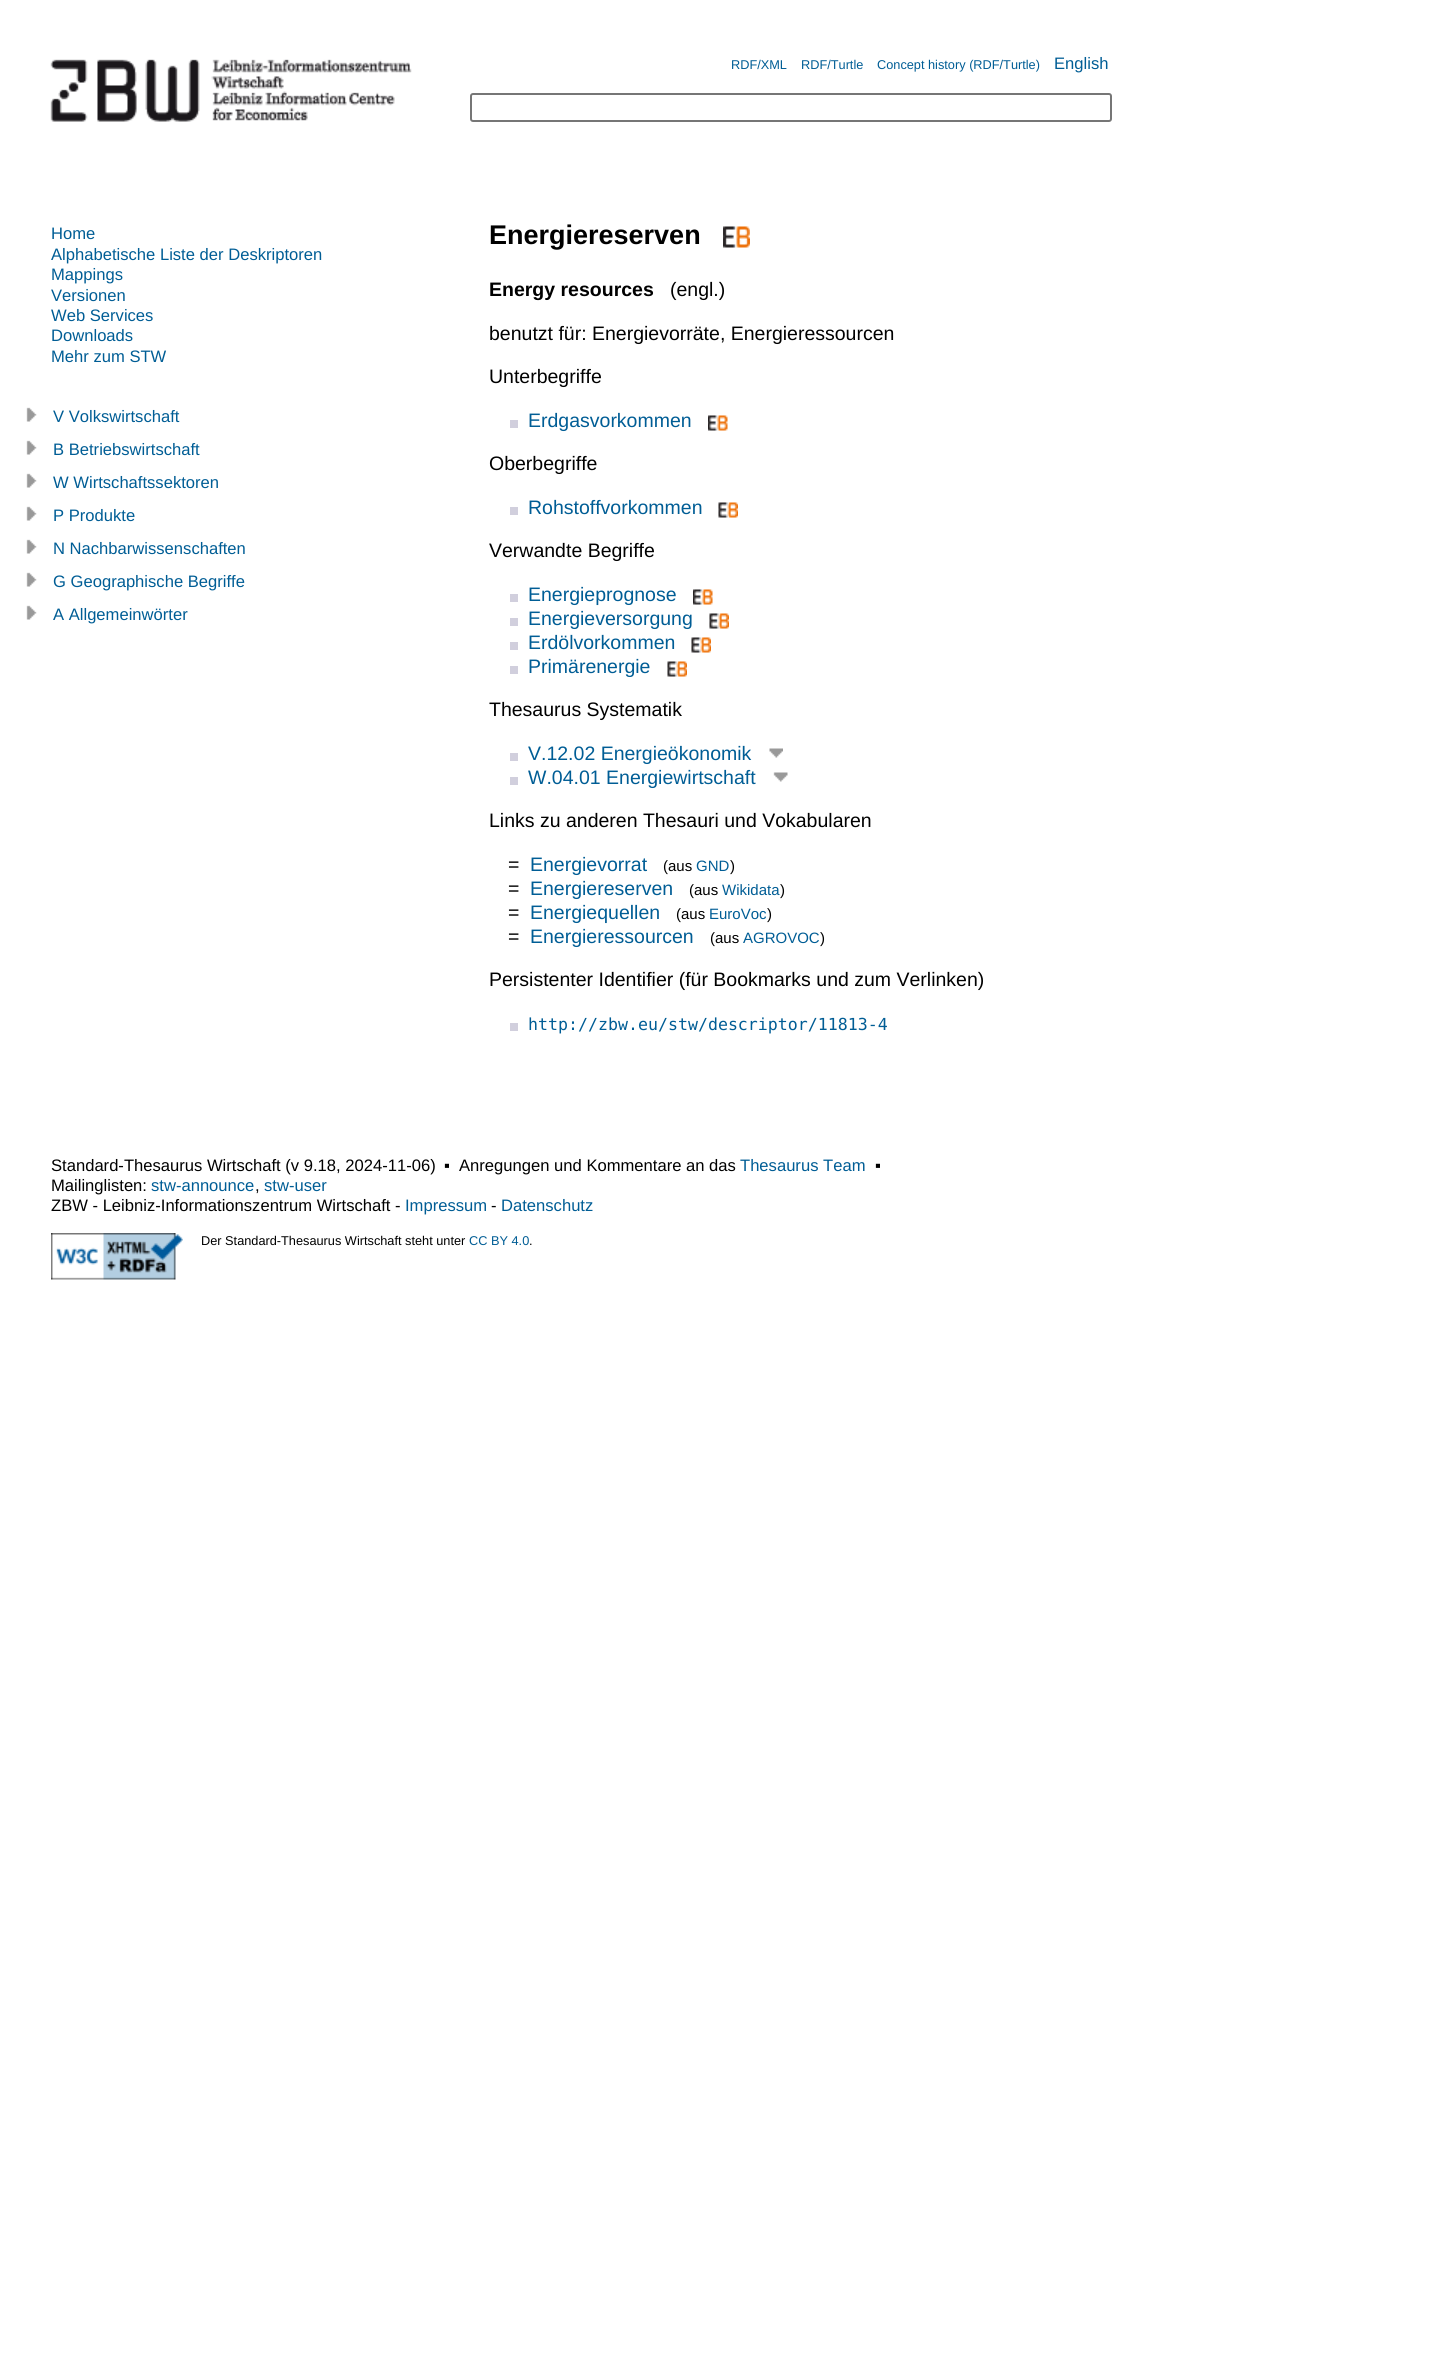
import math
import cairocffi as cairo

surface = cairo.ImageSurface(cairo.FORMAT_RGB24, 1450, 2370)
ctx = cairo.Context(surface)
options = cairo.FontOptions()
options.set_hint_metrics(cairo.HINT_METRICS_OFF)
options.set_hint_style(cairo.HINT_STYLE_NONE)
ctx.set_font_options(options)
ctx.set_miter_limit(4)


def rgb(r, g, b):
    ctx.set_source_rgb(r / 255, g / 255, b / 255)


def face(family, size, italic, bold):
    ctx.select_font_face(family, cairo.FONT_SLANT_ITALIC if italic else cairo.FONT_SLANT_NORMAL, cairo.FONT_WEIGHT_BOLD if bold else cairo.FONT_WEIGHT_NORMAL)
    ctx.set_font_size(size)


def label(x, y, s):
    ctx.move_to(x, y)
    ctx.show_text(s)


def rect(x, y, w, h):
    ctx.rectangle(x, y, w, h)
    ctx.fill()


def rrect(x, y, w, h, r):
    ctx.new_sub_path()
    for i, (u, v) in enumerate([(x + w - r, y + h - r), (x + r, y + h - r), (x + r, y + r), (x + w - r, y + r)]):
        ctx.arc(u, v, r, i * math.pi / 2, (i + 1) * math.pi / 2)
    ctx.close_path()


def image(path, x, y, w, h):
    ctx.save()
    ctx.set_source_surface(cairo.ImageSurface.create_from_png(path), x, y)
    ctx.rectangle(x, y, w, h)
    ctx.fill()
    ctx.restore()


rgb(255, 255, 255)
ctx.paint()
image('image0.png', 50, 59, 362, 63)
face('Liberation Sans', 12.75, 0, 0)
rgb(0, 93, 149)
label(731, 69, 'RDF/XML')
label(801, 69, 'RDF/Turtle')
label(877, 69, 'Concept history (RDF/Turtle)')
face('Liberation Sans', 16.6, 0, 0)
label(1054, 69, 'English')
rrect(471, 94, 640, 27, 2)
rgb(118, 118, 118)
ctx.stroke()
rgb(0, 93, 149)
label(51, 239, 'Home')
label(51, 260, 'Alphabetische Liste der Deskriptoren')
label(51, 280, 'Mappings')
label(51, 301, 'Versionen')
label(51, 321, 'Web Services')
label(51, 341, 'Downloads')
label(51, 362, 'Mehr zum STW')
image('image1.png', 26, 407, 11, 15)
label(53, 422, 'V Volkswirtschaft')
image('image1.png', 26, 440, 11, 15)
label(53, 455, 'B Betriebswirtschaft')
image('image1.png', 26, 473, 11, 15)
label(53, 488, 'W Wirtschaftssektoren')
image('image1.png', 26, 506, 11, 15)
label(53, 521, 'P Produkte')
image('image1.png', 26, 539, 11, 15)
label(53, 554, 'N Nachbarwissenschaften')
image('image1.png', 26, 572, 11, 15)
label(53, 587, 'G Geographische Begriffe')
image('image1.png', 26, 605, 11, 15)
label(53, 620, 'A Allgemeinwörter')
face('Liberation Sans', 27, 0, 1)
rgb(0, 0, 0)
label(489, 244, 'Energiereserven')
image('image2.png', 723, 226, 27, 22)
face('Liberation Sans', 19.5, 0, 1)
label(489, 296, 'Energy resources')
face('Liberation Sans', 19.5, 0, 0)
label(670, 296, '(engl.)')
label(489, 340, 'benutzt für: Energievorräte, Energieressourcen')
label(489, 383, 'Unterbegriffe')
rgb(209, 207, 221)
rect(510, 420, 8, 8)
rgb(0, 93, 149)
label(528, 427, 'Erdgasvorkommen')
image('image3.png', 708, 415, 20, 16)
rgb(0, 0, 0)
label(489, 470, 'Oberbegriffe')
rgb(209, 207, 221)
rect(510, 507, 8, 8)
rgb(0, 93, 149)
label(528, 514, 'Rohstoffvorkommen')
image('image4.png', 718, 502, 20, 16)
rgb(0, 0, 0)
label(489, 557, 'Verwandte Begriffe')
rgb(209, 207, 221)
rect(510, 594, 8, 8)
rgb(0, 93, 149)
label(528, 601, 'Energieprognose')
image('image5.png', 693, 589, 20, 16)
rgb(209, 207, 221)
rect(510, 618, 8, 8)
rgb(0, 93, 149)
label(528, 625, 'Energieversorgung')
image('image4.png', 709, 613, 20, 16)
rgb(209, 207, 221)
rect(510, 642, 8, 8)
rgb(0, 93, 149)
label(528, 649, 'Erdölvorkommen')
image('image4.png', 691, 637, 20, 16)
rgb(209, 207, 221)
rect(510, 666, 8, 8)
rgb(0, 93, 149)
label(528, 673, 'Primärenergie')
image('image4.png', 667, 661, 20, 16)
rgb(0, 0, 0)
label(489, 716, 'Thesaurus Systematik')
rgb(209, 207, 221)
rect(510, 753, 8, 8)
rgb(0, 93, 149)
label(528, 760, 'V.12.02 Energieökonomik')
image('image6.png', 769, 748, 14, 10)
rgb(209, 207, 221)
rect(510, 777, 8, 8)
rgb(0, 93, 149)
label(528, 784, 'W.04.01 Energiewirtschaft')
image('image7.png', 773, 772, 15, 10)
rgb(0, 0, 0)
label(489, 827, 'Links zu anderen Thesauri und Vokabularen')
label(508, 871, '=')
rgb(0, 93, 149)
label(530, 871, 'Energievorrat')
face('Liberation Sans', 15, 0, 0)
rgb(0, 0, 0)
label(663, 871, '(aus')
rgb(0, 93, 149)
label(696, 871, 'GND')
rgb(0, 0, 0)
label(730, 871, ')')
face('Liberation Sans', 19.5, 0, 0)
label(508, 895, '=')
rgb(0, 93, 149)
label(530, 895, 'Energiereserven')
face('Liberation Sans', 15, 0, 0)
rgb(0, 0, 0)
label(689, 895, '(aus')
rgb(0, 93, 149)
label(722, 895, 'Wikidata')
rgb(0, 0, 0)
label(780, 895, ')')
face('Liberation Sans', 19.5, 0, 0)
label(508, 919, '=')
rgb(0, 93, 149)
label(530, 919, 'Energiequellen')
face('Liberation Sans', 15, 0, 0)
rgb(0, 0, 0)
label(676, 919, '(aus')
rgb(0, 93, 149)
label(709, 919, 'EuroVoc')
rgb(0, 0, 0)
label(767, 919, ')')
face('Liberation Sans', 19.5, 0, 0)
label(508, 943, '=')
rgb(0, 93, 149)
label(530, 943, 'Energieressourcen')
face('Liberation Sans', 15, 0, 0)
rgb(0, 0, 0)
label(710, 943, '(aus')
rgb(0, 93, 149)
label(743, 943, 'AGROVOC')
rgb(0, 0, 0)
label(820, 943, ')')
face('Liberation Sans', 19.5, 0, 0)
label(489, 986, 'Persistenter Identifier (für Bookmarks und zum Verlinken)')
rgb(209, 207, 221)
rect(510, 1023, 8, 8)
face('DejaVu Sans Mono', 16.6, 0, 0)
rgb(0, 93, 149)
label(528, 1030, 'http://zbw.eu/stw/descriptor/11813-4')
face('Liberation Sans', 16.6, 0, 0)
rgb(0, 0, 0)
label(51, 1171, 'Standard-Thesaurus Wirtschaft (v 9.18, 2024-11-06)')
label(444, 1171, '▪')
label(459, 1171, 'Anregungen und Kommentare an das')
rgb(0, 93, 149)
label(740, 1171, 'Thesaurus Team')
rgb(0, 0, 0)
label(875, 1171, '▪')
label(51, 1191, 'Mailinglisten:')
rgb(0, 93, 149)
label(151, 1191, 'stw-announce')
rgb(0, 0, 0)
label(255, 1191, ',')
rgb(0, 93, 149)
label(264, 1191, 'stw-user')
rgb(0, 0, 0)
label(51, 1211, 'ZBW - Leibniz-Informationszentrum Wirtschaft -')
rgb(0, 93, 149)
label(405, 1211, 'Impressum')
rgb(0, 0, 0)
label(491, 1211, '-')
rgb(0, 93, 149)
label(501, 1211, 'Datenschutz')
image('image8.png', 51, 1233, 132, 47)
face('Liberation Sans', 12.75, 0, 0)
rgb(0, 0, 0)
label(201, 1245, 'Der Standard-Thesaurus Wirtschaft steht unter')
rgb(0, 93, 149)
label(469, 1245, 'CC BY 4.0')
rgb(0, 0, 0)
label(529, 1245, '.')
surface.write_to_png('render.png')
